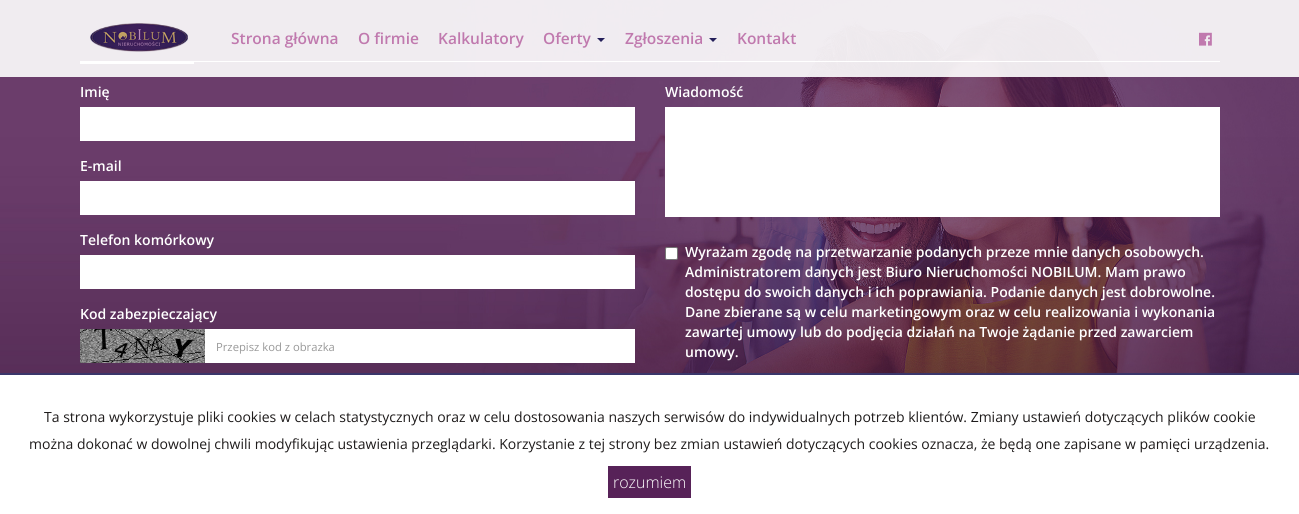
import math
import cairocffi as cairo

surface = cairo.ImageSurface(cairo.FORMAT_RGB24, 1299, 514)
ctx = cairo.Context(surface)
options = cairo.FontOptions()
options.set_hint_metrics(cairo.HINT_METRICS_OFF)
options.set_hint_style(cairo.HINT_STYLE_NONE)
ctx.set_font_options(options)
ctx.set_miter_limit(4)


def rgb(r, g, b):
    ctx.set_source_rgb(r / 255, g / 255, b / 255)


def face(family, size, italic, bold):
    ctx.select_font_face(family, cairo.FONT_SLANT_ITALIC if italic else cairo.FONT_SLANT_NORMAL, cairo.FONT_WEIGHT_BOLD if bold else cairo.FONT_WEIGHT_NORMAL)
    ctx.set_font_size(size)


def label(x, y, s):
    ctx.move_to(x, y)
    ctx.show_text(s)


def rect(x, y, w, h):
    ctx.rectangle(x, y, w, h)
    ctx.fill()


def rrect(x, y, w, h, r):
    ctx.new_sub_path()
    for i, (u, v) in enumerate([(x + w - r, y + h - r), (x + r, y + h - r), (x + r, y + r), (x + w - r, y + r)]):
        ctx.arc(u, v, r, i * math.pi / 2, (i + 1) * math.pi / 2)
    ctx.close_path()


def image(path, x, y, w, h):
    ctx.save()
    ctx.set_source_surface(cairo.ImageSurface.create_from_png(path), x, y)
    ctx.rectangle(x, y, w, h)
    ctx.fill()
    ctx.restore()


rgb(255, 255, 255)
ctx.paint()
image('image2.png', 0, 0, 1299, 373)
rgb(255, 255, 255)
rect(194, 61, 1026, 1)
rect(80, 61, 114, 3)
ctx.set_source_rgba(1, 1, 1, 0.9)
rect(0, 0, 1299, 77)
image('image0.png', 90, 23, 98, 29)
face('Open Sans SemiBold', 15.5, 0, 0)
rgb(192, 121, 174)
label(231, 44, 'Strona główna')
label(358, 44, 'O firmie')
label(438, 44, 'Kalkulatory')
label(543, 44, 'Oferty')
rgb(36, 31, 90)
ctx.new_path()
ctx.move_to(597, 38)
ctx.line_to(605, 38)
ctx.line_to(601, 42)
ctx.close_path()
ctx.fill()
rgb(192, 121, 174)
label(625, 44, 'Zgłoszenia')
rgb(36, 31, 90)
ctx.new_path()
ctx.move_to(709, 38)
ctx.line_to(717, 38)
ctx.line_to(713, 42)
ctx.close_path()
ctx.fill()
rgb(192, 121, 174)
label(737, 44, 'Kontakt')
image('image1.png', 1199, 32, 13, 14)
face('Open Sans SemiBold', 14, 0, 0)
rgb(255, 255, 255)
label(80, 97, 'Imię')
rect(80, 107, 555, 34)
label(80, 171, 'E-mail')
rect(80, 181, 555, 34)
label(80, 245, 'Telefon komórkowy')
rect(80, 255, 555, 34)
label(80, 319, 'Kod zabezpieczający')
image('image3.png', 80, 329, 125, 34)
rect(205, 329, 430, 34)
face('Open Sans', 11.25, 0, 0)
rgb(153, 153, 153)
label(216, 351, 'Przepisz kod z obrazka')
face('Open Sans SemiBold', 14, 0, 0)
rgb(255, 255, 255)
label(665, 97, 'Wiadomość')
rect(665, 107, 555, 110)
rrect(665.5, 247.5, 12, 12, 1.5)
ctx.fill_preserve()
rgb(118, 118, 118)
ctx.set_line_width(1)
ctx.stroke()
rgb(255, 255, 255)
label(685, 257, 'Wyrażam zgodę na przetwarzanie podanych przeze mnie danych osobowych.')
label(685, 277, 'Administratorem danych jest Biuro Nieruchomości NOBILUM. Mam prawo')
label(685, 297, 'dostępu do swoich danych i ich poprawiania. Podanie danych jest dobrowolne.')
label(685, 317, 'Dane zbierane są w celu marketingowym oraz w celu realizowania i wykonania')
label(685, 337, 'zawartej umowy lub do podjęcia działań na Twoje żądanie przed zawarciem')
label(685, 357, 'umowy.')
rgb(58, 54, 106)
rect(0, 373, 1299, 2)
face('Open Sans', 14, 0, 0)
rgb(30, 27, 27)
label(44, 422, 'Ta strona wykorzystuje pliki cookies w celach statystycznych oraz w celu dostosowania naszych serwisów do indywidualnych potrzeb klientów. Zmiany ustawień dotyczących plików cookie')
label(29, 449, 'można dokonać w dowolnej chwili modyfikując ustawienia przeglądarki. Korzystanie z tej strony bez zmian ustawień dotyczących cookies oznacza, że będą one zapisane w pamięci urządzenia.')
rgb(87, 34, 88)
rect(608, 466, 83, 32)
face('Open Sans Light', 16, 0, 0)
rgb(255, 255, 255)
label(613, 488, 'rozumiem')
surface.write_to_png('render.png')
